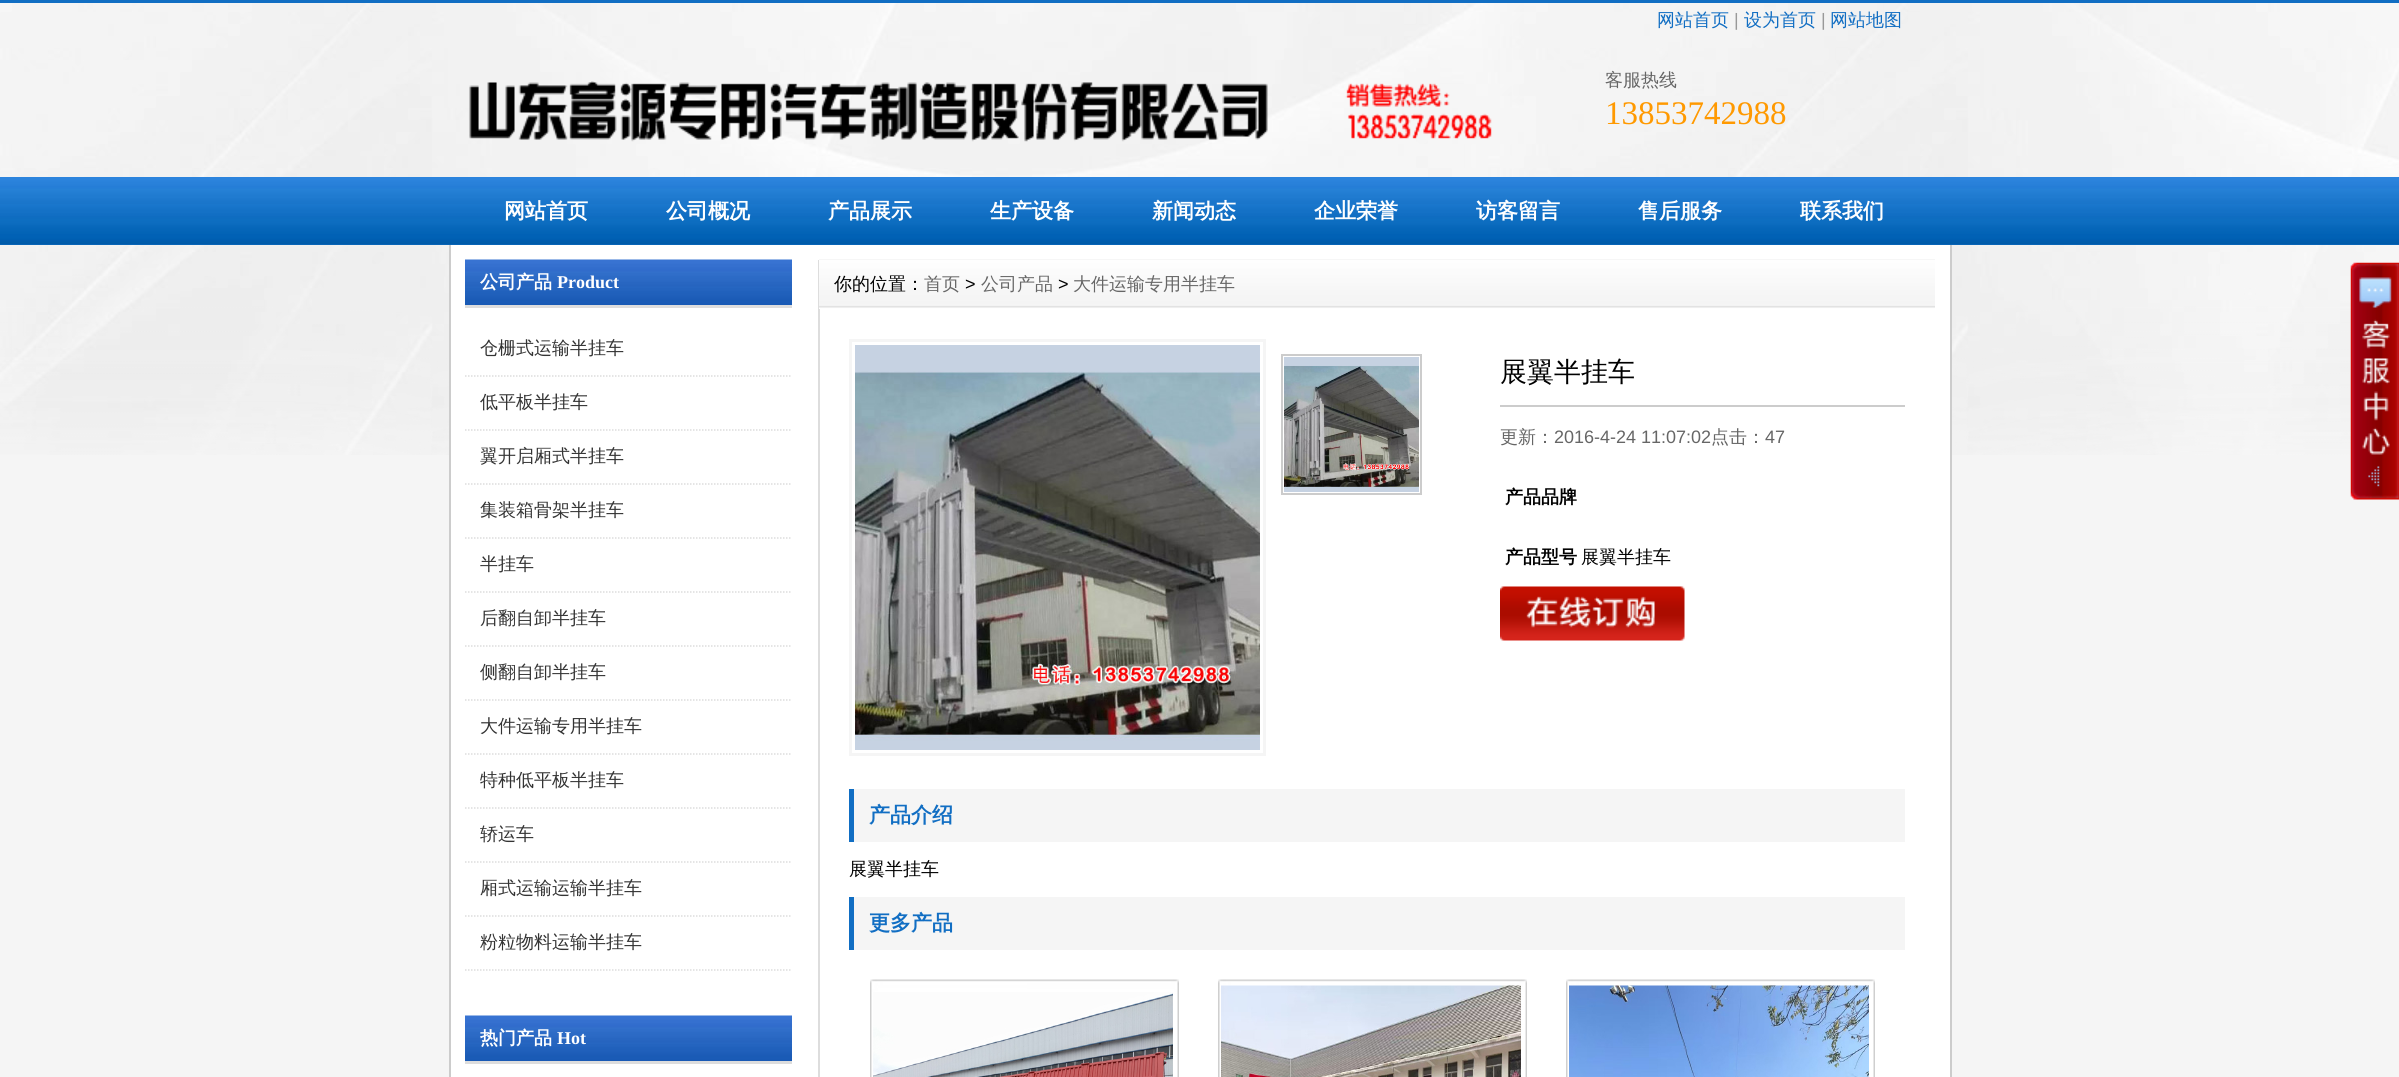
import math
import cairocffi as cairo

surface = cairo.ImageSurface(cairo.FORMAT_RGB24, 2399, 1077)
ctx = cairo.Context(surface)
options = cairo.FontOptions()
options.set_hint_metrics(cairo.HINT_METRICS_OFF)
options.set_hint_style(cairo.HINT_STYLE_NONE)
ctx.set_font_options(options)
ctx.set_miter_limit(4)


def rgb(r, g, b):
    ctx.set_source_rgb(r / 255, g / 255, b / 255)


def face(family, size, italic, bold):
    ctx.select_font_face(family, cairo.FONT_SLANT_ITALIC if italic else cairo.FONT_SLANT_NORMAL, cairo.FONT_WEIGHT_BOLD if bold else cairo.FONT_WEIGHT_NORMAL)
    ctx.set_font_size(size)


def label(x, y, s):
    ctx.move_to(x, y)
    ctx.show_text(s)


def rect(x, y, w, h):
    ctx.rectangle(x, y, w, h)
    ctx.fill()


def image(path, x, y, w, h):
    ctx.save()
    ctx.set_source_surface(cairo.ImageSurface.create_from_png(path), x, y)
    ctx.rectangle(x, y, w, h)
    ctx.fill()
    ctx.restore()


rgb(245, 245, 245)
ctx.paint()
image('image0.png', 0, 3, 2399, 452)
rgb(17, 110, 195)
rect(0, 0, 2399, 3)
face('WenQuanYi Zen Hei Medium', 18, 0, 0)
label(1657, 26, '网站首页')
face('Liberation Sans', 18, 0, 0)
rgb(153, 153, 153)
label(1734, 26, '|')
face('WenQuanYi Zen Hei Medium', 18, 0, 0)
rgb(17, 110, 195)
label(1744, 26, '设为首页')
face('Liberation Sans', 18, 0, 0)
rgb(153, 153, 153)
label(1821, 26, '|')
face('WenQuanYi Zen Hei Medium', 18, 0, 0)
rgb(17, 110, 195)
label(1830, 26, '网站地图')
image('image1.png', 469, 81, 1023, 61)
rgb(102, 102, 102)
label(1605, 86, '客服热线')
face('Liberation Serif', 33, 0, 0)
rgb(255, 153, 0)
label(1605, 124, '13853742988')
rgb(17, 110, 195)
rect(0, 244, 2399, 1)
image('image2.png', 0, 177, 2399, 68)
face('WenQuanYi Zen Hei', 21, 0, 1)
rgb(255, 255, 255)
label(504, 218, '网站首页')
label(666, 218, '公司概况')
label(828, 218, '产品展示')
label(990, 218, '生产设备')
label(1152, 218, '新闻动态')
label(1314, 218, '企业荣誉')
label(1476, 218, '访客留言')
label(1638, 218, '售后服务')
label(1800, 218, '联系我们')
rect(451, 245, 1499, 832)
rgb(204, 204, 204)
rect(1950, 245, 2, 832)
rect(449, 245, 2, 832)
image('image3.png', 465, 259, 327, 46)
rgb(221, 221, 221)
rect(465, 305, 327, 3)
face('WenQuanYi Zen Hei', 18, 0, 1)
rgb(255, 255, 255)
label(480, 288, '公司产品')
face('Liberation Serif', 18, 0, 1)
label(557, 288, 'Product')
ctx.new_path()
ctx.move_to(465, 376)
ctx.line_to(792, 376)
rgb(221, 221, 221)
ctx.set_line_width(1.5)
ctx.set_dash([1.5, 1.5])
ctx.stroke()
face('WenQuanYi Zen Hei Medium', 18, 0, 0)
rgb(51, 51, 51)
label(480, 354, '仓栅式运输半挂车')
ctx.new_path()
ctx.move_to(465, 430)
ctx.line_to(792, 430)
rgb(221, 221, 221)
ctx.stroke()
rgb(51, 51, 51)
label(480, 408, '低平板半挂车')
ctx.new_path()
ctx.move_to(465, 484)
ctx.line_to(792, 484)
rgb(221, 221, 221)
ctx.stroke()
rgb(51, 51, 51)
label(480, 462, '翼开启厢式半挂车')
ctx.new_path()
ctx.move_to(465, 538)
ctx.line_to(792, 538)
rgb(221, 221, 221)
ctx.stroke()
rgb(51, 51, 51)
label(480, 516, '集装箱骨架半挂车')
ctx.new_path()
ctx.move_to(465, 592)
ctx.line_to(792, 592)
rgb(221, 221, 221)
ctx.stroke()
rgb(51, 51, 51)
label(480, 570, '半挂车')
ctx.new_path()
ctx.move_to(465, 646)
ctx.line_to(792, 646)
rgb(221, 221, 221)
ctx.stroke()
rgb(51, 51, 51)
label(480, 624, '后翻自卸半挂车')
ctx.new_path()
ctx.move_to(465, 700)
ctx.line_to(792, 700)
rgb(221, 221, 221)
ctx.stroke()
rgb(51, 51, 51)
label(480, 678, '侧翻自卸半挂车')
ctx.new_path()
ctx.move_to(465, 754)
ctx.line_to(792, 754)
rgb(221, 221, 221)
ctx.stroke()
rgb(51, 51, 51)
label(480, 732, '大件运输专用半挂车')
ctx.new_path()
ctx.move_to(465, 808)
ctx.line_to(792, 808)
rgb(221, 221, 221)
ctx.stroke()
rgb(51, 51, 51)
label(480, 786, '特种低平板半挂车')
ctx.new_path()
ctx.move_to(465, 862)
ctx.line_to(792, 862)
rgb(221, 221, 221)
ctx.stroke()
rgb(51, 51, 51)
label(480, 840, '轿运车')
ctx.new_path()
ctx.move_to(465, 916)
ctx.line_to(792, 916)
rgb(221, 221, 221)
ctx.stroke()
rgb(51, 51, 51)
label(480, 894, '厢式运输运输半挂车')
ctx.new_path()
ctx.move_to(465, 970)
ctx.line_to(792, 970)
rgb(221, 221, 221)
ctx.stroke()
rgb(51, 51, 51)
label(480, 948, '粉粒物料运输半挂车')
image('image3.png', 465, 1015, 327, 46)
rgb(221, 221, 221)
rect(465, 1061, 327, 3)
face('WenQuanYi Zen Hei', 18, 0, 1)
rgb(255, 255, 255)
label(480, 1044, '热门产品')
face('Liberation Serif', 18, 0, 1)
label(557, 1044, 'Hot')
rgb(221, 221, 221)
rect(818, 260, 2, 817)
image('image4.png', 819, 259, 1116, 50)
face('WenQuanYi Zen Hei Medium', 18, 0, 0)
rgb(0, 0, 0)
label(834, 290, '你的位置：')
rgb(102, 102, 102)
label(924, 290, '首页')
face('Liberation Sans', 18, 0, 0)
rgb(0, 0, 0)
label(965, 290, '>')
face('WenQuanYi Zen Hei Medium', 18, 0, 0)
rgb(102, 102, 102)
label(981, 290, '公司产品')
face('Liberation Sans', 18, 0, 0)
rgb(0, 0, 0)
label(1058, 290, '>')
face('WenQuanYi Zen Hei Medium', 18, 0, 0)
rgb(102, 102, 102)
label(1073, 290, '大件运输专用半挂车')
ctx.rectangle(850.5, 340.5, 414, 414)
rgb(245, 245, 245)
ctx.set_line_width(3)
ctx.set_dash([])
ctx.stroke()
image('image5.png', 855, 345, 405, 405)
ctx.rectangle(1282, 355, 139, 139)
rgb(204, 204, 204)
ctx.set_line_width(2)
ctx.stroke()
image('image6.png', 1284, 357, 135, 135)
rect(1500, 405, 405, 2)
face('WenQuanYi Zen Hei Medium', 27, 0, 0)
rgb(0, 0, 0)
label(1500, 381, '展翼半挂车')
face('WenQuanYi Zen Hei Medium', 18, 0, 0)
rgb(102, 102, 102)
label(1500, 443, '更新：')
face('Liberation Sans', 18, 0, 0)
label(1554, 443, '2016-4-24 11:07:02')
face('WenQuanYi Zen Hei Medium', 18, 0, 0)
label(1711, 443, '点击：')
face('Liberation Sans', 18, 0, 0)
label(1765, 443, '47')
face('WenQuanYi Zen Hei', 18, 0, 1)
rgb(0, 0, 0)
label(1505, 503, '产品品牌')
label(1505, 563, '产品型号')
face('WenQuanYi Zen Hei Medium', 18, 0, 0)
label(1581, 563, '展翼半挂车')
image('image7.png', 1500, 586, 185, 55)
rgb(245, 245, 245)
rect(854, 789, 1051, 53)
rgb(17, 110, 195)
rect(849, 789, 5, 53)
face('WenQuanYi Zen Hei', 21, 0, 1)
label(869, 822, '产品介绍')
face('WenQuanYi Zen Hei Medium', 18, 0, 0)
rgb(0, 0, 0)
label(849, 875, '展翼半挂车')
rgb(245, 245, 245)
rect(854, 897, 1051, 53)
rgb(17, 110, 195)
rect(849, 897, 5, 53)
face('WenQuanYi Zen Hei', 21, 0, 1)
label(869, 930, '更多产品')
image('image8.png', 870, 979, 309, 98)
image('image9.png', 873, 992, 300, 85)
image('image10.png', 1218, 979, 309, 98)
image('image11.png', 1221, 985, 300, 92)
image('image8.png', 1566, 979, 309, 98)
image('image12.png', 1569, 985, 300, 92)
image('image13.png', 2350, 262, 49, 238)
surface.write_to_png('render.png')
